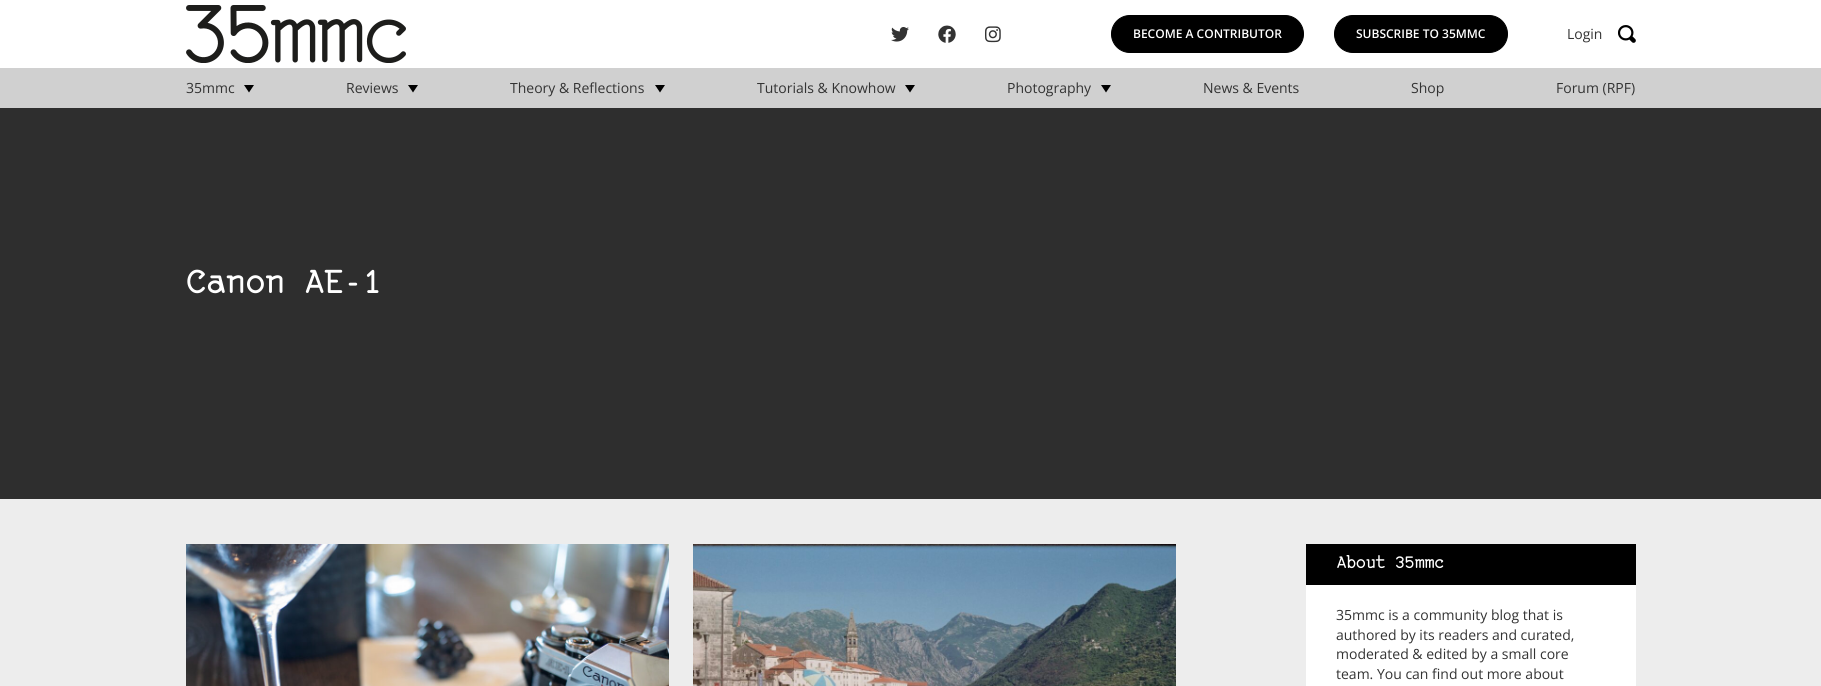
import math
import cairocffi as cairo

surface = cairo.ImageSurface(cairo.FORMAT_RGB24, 1821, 686)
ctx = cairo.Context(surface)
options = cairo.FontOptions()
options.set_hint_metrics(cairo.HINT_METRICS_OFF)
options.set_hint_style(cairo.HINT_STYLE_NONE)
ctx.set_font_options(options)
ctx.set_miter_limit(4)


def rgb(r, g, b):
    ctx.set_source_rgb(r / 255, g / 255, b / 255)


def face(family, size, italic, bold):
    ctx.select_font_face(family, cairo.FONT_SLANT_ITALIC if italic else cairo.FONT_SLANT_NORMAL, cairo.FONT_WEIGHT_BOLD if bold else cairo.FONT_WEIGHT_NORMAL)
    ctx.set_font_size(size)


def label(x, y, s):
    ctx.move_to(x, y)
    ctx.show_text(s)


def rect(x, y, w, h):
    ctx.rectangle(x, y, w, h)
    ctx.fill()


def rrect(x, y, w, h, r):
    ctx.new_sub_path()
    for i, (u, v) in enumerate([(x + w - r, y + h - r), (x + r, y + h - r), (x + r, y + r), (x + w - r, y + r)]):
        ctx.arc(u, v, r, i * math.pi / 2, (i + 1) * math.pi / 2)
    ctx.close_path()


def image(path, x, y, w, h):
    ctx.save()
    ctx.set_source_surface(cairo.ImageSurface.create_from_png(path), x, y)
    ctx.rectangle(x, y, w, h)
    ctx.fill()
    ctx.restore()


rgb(237, 237, 237)
ctx.paint()
rgb(255, 255, 255)
rect(0, 0, 1821, 68)
image('image0.png', 186, 5, 220, 58)
image('image1.png', 891, 27, 18, 15)
image('image2.png', 938, 25, 18, 18)
image('image3.png', 985, 26, 16, 17)
rgb(0, 0, 0)
rrect(1111.5, 15.5, 192, 37, 18.5)
ctx.fill_preserve()
ctx.set_line_width(1)
ctx.stroke()
face('Open Sans SemiBold', 12, 0, 0)
rgb(255, 255, 255)
label(1133, 38, 'BECOME A CONTRIBUTOR')
rgb(0, 0, 0)
rrect(1334.5, 15.5, 173, 37, 18.5)
ctx.fill_preserve()
ctx.stroke()
rgb(255, 255, 255)
label(1356, 38, 'SUBSCRIBE TO 35MMC')
face('Open Sans', 14, 0, 0)
rgb(51, 51, 51)
label(1567, 39, 'Login')
image('image4.png', 1618, 25, 18, 18)
rgb(208, 208, 208)
rect(0, 68, 1821, 40)
rgb(51, 51, 51)
label(186, 93, '35mmc')
rgb(0, 0, 0)
ctx.new_path()
ctx.move_to(254, 85)
ctx.line_to(249, 92.5)
ctx.line_to(244, 85)
ctx.close_path()
ctx.fill()
rgb(51, 51, 51)
label(346, 93, 'Reviews')
rgb(0, 0, 0)
ctx.new_path()
ctx.move_to(418, 85)
ctx.line_to(413, 92.5)
ctx.line_to(408, 85)
ctx.close_path()
ctx.fill()
rgb(51, 51, 51)
label(510, 93, 'Theory & Reflections')
rgb(0, 0, 0)
ctx.new_path()
ctx.move_to(665, 85)
ctx.line_to(660, 92.5)
ctx.line_to(655, 85)
ctx.close_path()
ctx.fill()
rgb(51, 51, 51)
label(757, 93, 'Tutorials & Knowhow')
rgb(0, 0, 0)
ctx.new_path()
ctx.move_to(915, 85)
ctx.line_to(910, 92.5)
ctx.line_to(905, 85)
ctx.close_path()
ctx.fill()
rgb(51, 51, 51)
label(1007, 93, 'Photography')
rgb(0, 0, 0)
ctx.new_path()
ctx.move_to(1111, 85)
ctx.line_to(1106, 92.5)
ctx.line_to(1101, 85)
ctx.close_path()
ctx.fill()
rgb(51, 51, 51)
label(1203, 93, 'News & Events')
label(1411, 93, 'Shop')
label(1556, 93, 'Forum (RPF)')
rgb(46, 46, 46)
rect(0, 108, 1821, 391)
face('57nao', 28, 0, 1)
rgb(255, 255, 255)
label(186, 293, 'Canon AE-1')
image('image5.png', 186, 544, 483, 142)
image('image6.png', 693, 544, 483, 142)
rect(1306, 585, 330, 101)
rgb(0, 0, 0)
rect(1306, 544, 330, 41)
face('57nao', 14, 0, 1)
rgb(255, 255, 255)
label(1336, 568, 'About 35mmc')
face('Open Sans', 14, 0, 0)
rgb(51, 51, 51)
label(1336, 620, '35mmc is a community blog that is')
label(1336, 640, 'authored by its readers and curated,')
label(1336, 659, 'moderated & edited by a small core')
label(1336, 679, 'team. You can find out more about')
surface.write_to_png('render.png')
